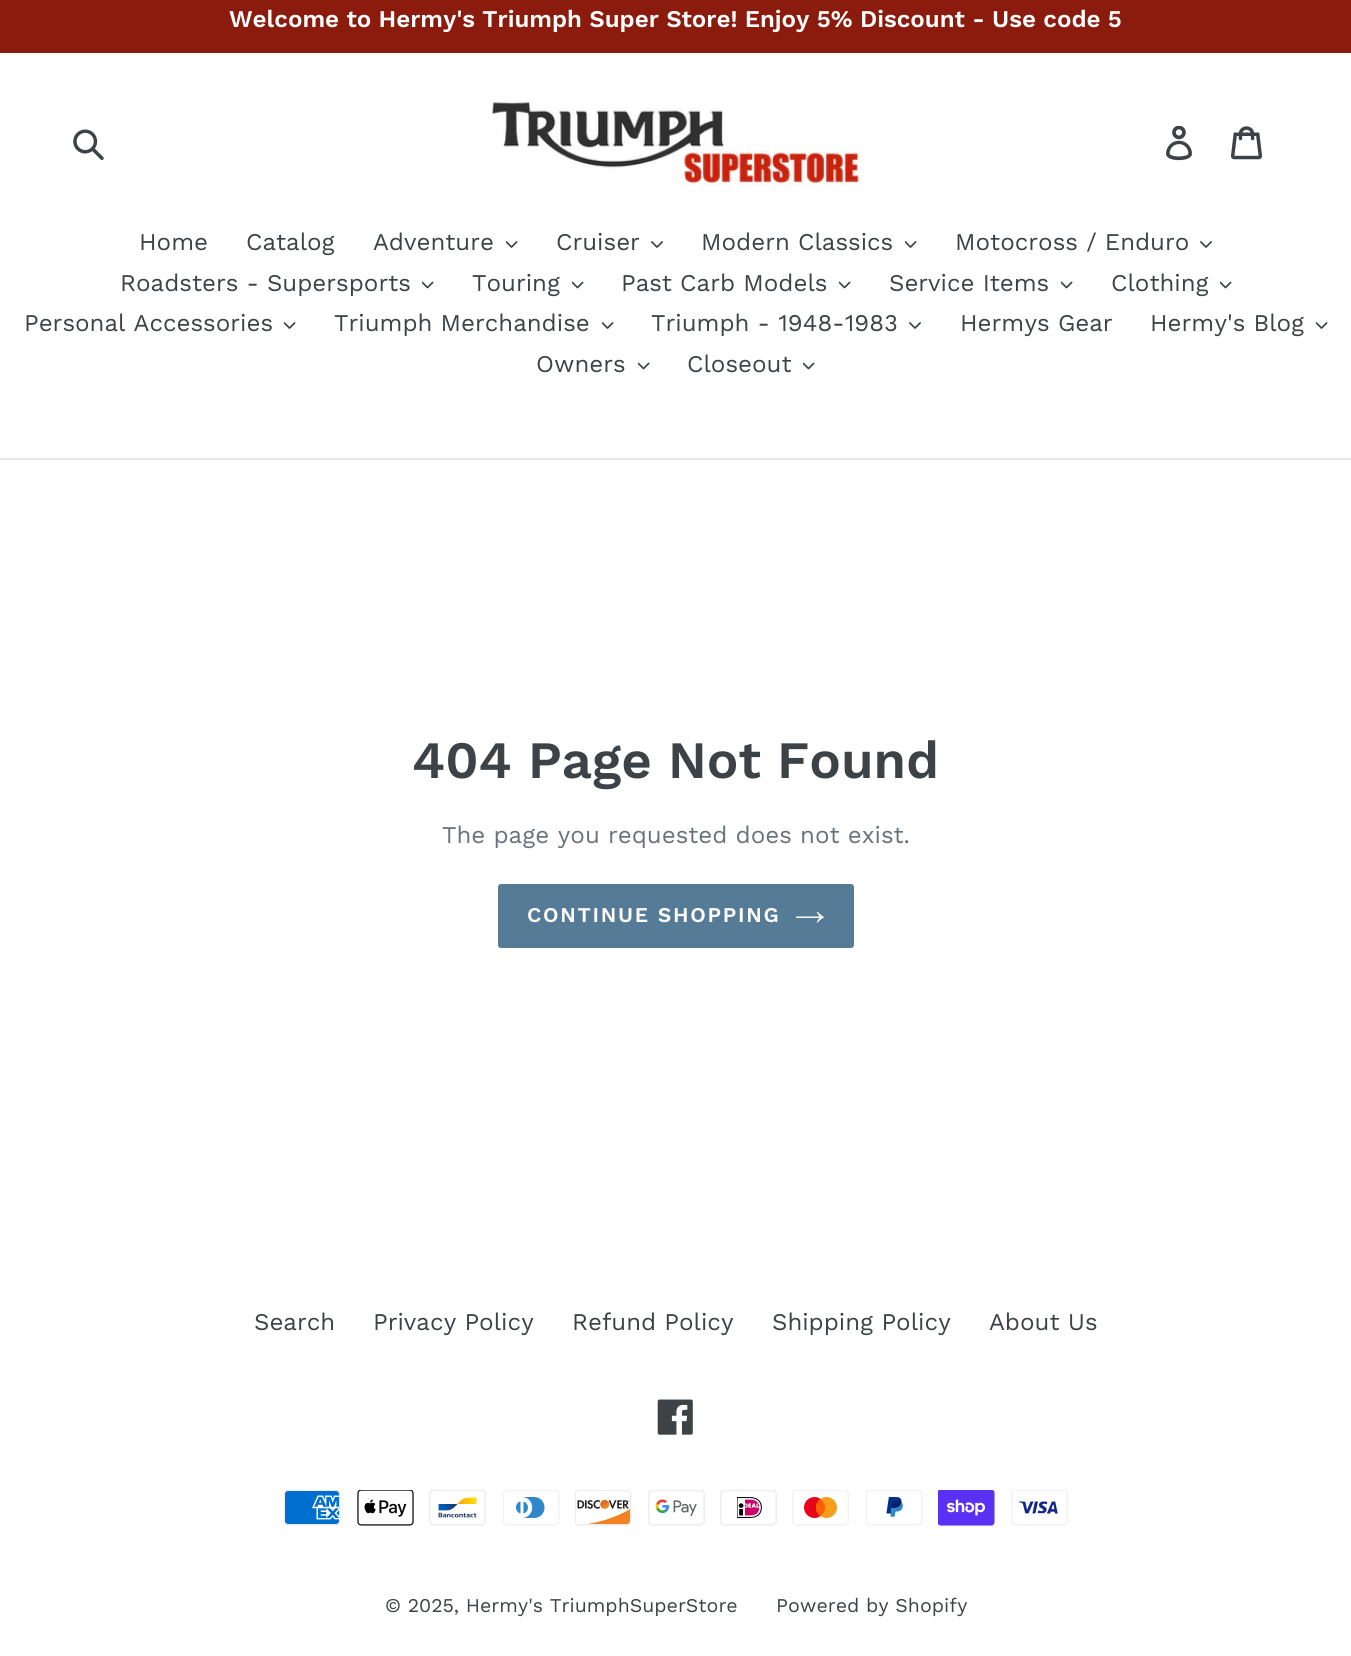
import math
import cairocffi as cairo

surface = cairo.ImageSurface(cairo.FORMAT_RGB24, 1351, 1656)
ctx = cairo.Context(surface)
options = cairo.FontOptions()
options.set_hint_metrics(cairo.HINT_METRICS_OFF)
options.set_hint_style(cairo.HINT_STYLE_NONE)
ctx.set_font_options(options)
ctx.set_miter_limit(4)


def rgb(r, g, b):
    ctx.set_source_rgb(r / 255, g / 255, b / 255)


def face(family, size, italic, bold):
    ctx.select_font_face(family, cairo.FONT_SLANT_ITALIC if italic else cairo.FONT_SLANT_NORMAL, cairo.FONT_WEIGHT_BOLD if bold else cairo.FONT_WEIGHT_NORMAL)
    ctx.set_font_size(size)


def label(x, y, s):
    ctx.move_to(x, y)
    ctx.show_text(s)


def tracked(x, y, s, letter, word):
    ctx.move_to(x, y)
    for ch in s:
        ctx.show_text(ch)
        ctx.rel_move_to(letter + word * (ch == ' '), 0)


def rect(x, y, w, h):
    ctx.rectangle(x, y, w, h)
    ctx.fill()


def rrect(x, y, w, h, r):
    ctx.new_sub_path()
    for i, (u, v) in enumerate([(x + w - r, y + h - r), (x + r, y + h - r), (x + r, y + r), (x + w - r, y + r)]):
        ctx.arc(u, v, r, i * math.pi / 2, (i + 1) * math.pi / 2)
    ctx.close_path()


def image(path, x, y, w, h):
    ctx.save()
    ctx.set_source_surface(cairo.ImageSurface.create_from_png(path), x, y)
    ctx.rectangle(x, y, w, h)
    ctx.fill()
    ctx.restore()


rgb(255, 255, 255)
ctx.paint()
rgb(139, 28, 13)
rect(0, 0, 1351, 53)
face('Work Sans SemiBold', 24, 0, 0)
rgb(255, 255, 255)
label(229, 27, 'Welcome to Hermy\'s Triumph Super Store! Enjoy 5% Discount - Use code 5')
image('image0.png', 73, 129, 31, 31)
image('image1.png', 491, 102, 372, 85)
image('image2.png', 1166, 126, 26, 35)
image('image3.png', 1230, 126, 32, 34)
rgb(232, 233, 235)
rect(0, 458, 1351, 2)
face('Work Sans', 24, 0, 0)
rgb(61, 66, 70)
label(139, 250, 'Home')
label(246, 250, 'Catalog')
label(373, 250, 'Adventure')
image('image4.png', 506, 241, 12, 7)
label(556, 250, 'Cruiser')
image('image5.png', 651, 241, 12, 7)
label(701, 250, 'Modern Classics')
image('image4.png', 905, 241, 12, 7)
label(955, 250, 'Motocross / Enduro')
image('image5.png', 1200, 241, 12, 7)
label(120, 291, 'Roadsters - Supersports')
image('image6.png', 422, 281, 12, 8)
label(472, 291, 'Touring')
image('image6.png', 572, 281, 12, 8)
label(621, 291, 'Past Carb Models')
image('image6.png', 839, 281, 12, 8)
label(889, 291, 'Service Items')
image('image6.png', 1061, 281, 12, 8)
label(1111, 291, 'Clothing')
image('image6.png', 1220, 281, 12, 8)
label(24, 331, 'Personal Accessories')
image('image4.png', 284, 322, 12, 7)
label(334, 331, 'Triumph Merchandise')
image('image4.png', 602, 322, 12, 7)
label(651, 331, 'Triumph - 1948-1983')
image('image5.png', 909, 322, 12, 7)
label(960, 331, 'Hermys Gear')
label(1150, 331, 'Hermy\'s Blog')
image('image4.png', 1316, 322, 12, 7)
label(536, 372, 'Owners')
image('image6.png', 638, 362, 12, 8)
label(687, 372, 'Closeout')
image('image6.png', 803, 362, 12, 8)
face('Work Sans SemiBold', 52.5, 0, 0)
label(412, 778, '404 Page Not Found')
face('Work Sans', 24, 0, 0)
rgb(105, 114, 123)
label(442, 843, 'The page you requested does not exist.')
rgb(85, 123, 151)
rrect(498, 884, 356, 64, 3)
ctx.fill()
face('Work Sans SemiBold', 21, 0, 0)
rgb(255, 255, 255)
tracked(527, 922, 'CONTINUE SHOPPING', 1.7, 0)
image('image7.png', 796, 911, 28, 12)
face('Work Sans', 24, 0, 0)
rgb(61, 66, 70)
label(254, 1330, 'Search')
label(373, 1330, 'Privacy Policy')
label(572, 1330, 'Refund Policy')
label(772, 1330, 'Shipping Policy')
label(989, 1330, 'About Us')
image('image8.png', 657, 1399, 36, 36)
image('image9.png', 284, 1490, 57, 36)
image('image10.png', 357, 1490, 57, 36)
image('image11.png', 429, 1490, 57, 36)
image('image12.png', 503, 1490, 57, 36)
image('image13.png', 575, 1490, 57, 36)
image('image14.png', 648, 1490, 57, 36)
image('image15.png', 720, 1490, 57, 36)
image('image16.png', 792, 1490, 57, 36)
image('image17.png', 866, 1490, 57, 36)
image('image18.png', 938, 1490, 57, 36)
image('image19.png', 1011, 1490, 57, 36)
face('Work Sans', 19.5, 0, 0)
label(385, 1612, '© 2025, Hermy\'s TriumphSuperStore')
label(776, 1612, 'Powered by Shopify')
surface.write_to_png('render.png')
